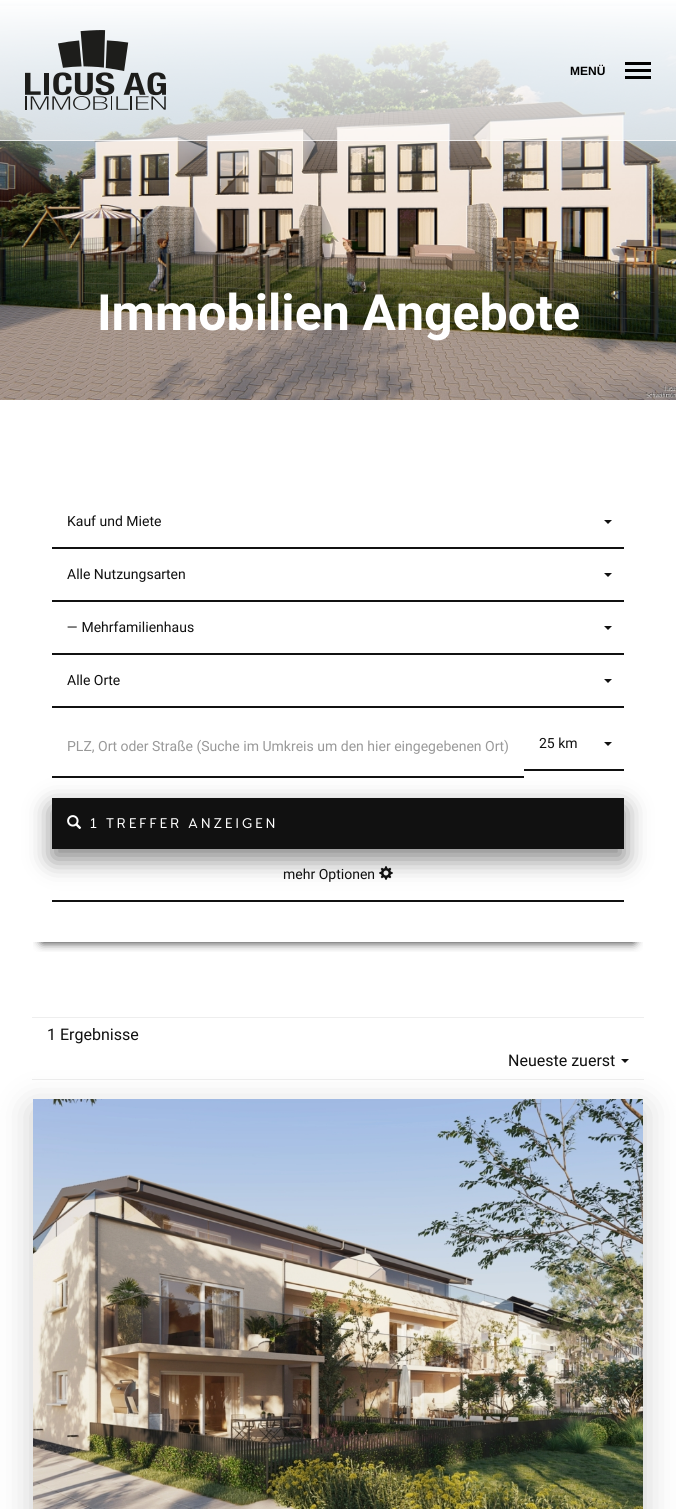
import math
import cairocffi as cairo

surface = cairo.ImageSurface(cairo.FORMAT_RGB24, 676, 1509)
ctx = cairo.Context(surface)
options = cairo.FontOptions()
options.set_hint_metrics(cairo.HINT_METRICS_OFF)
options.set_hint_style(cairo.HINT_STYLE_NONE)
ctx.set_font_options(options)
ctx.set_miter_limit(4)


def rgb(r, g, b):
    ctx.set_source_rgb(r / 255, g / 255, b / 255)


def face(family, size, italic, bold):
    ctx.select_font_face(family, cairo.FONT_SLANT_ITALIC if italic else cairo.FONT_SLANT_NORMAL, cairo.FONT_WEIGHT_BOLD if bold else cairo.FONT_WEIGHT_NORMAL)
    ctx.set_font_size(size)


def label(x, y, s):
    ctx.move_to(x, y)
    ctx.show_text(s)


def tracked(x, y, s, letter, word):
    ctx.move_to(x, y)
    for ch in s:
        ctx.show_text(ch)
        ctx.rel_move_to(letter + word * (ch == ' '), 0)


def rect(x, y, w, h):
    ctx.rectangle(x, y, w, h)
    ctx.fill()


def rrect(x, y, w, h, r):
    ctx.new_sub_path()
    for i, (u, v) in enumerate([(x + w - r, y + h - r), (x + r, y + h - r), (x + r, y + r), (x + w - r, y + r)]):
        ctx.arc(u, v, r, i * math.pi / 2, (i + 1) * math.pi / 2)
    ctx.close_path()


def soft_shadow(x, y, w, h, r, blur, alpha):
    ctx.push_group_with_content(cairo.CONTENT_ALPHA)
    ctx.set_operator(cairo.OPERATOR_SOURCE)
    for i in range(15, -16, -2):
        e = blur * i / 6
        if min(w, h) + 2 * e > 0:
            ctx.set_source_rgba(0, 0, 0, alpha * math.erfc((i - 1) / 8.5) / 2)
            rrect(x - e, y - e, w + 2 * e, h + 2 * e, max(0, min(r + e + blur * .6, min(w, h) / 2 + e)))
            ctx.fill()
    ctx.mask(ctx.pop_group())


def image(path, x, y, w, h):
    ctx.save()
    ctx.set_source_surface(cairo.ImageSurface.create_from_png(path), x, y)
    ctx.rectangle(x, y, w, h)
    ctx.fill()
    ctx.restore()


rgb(255, 255, 255)
ctx.paint()
image('image1.png', 0, 0, 676, 400)
ctx.set_source_rgba(1, 1, 1, 0.5)
rect(0, 6, 676, 135)
ctx.set_source_rgba(1, 1, 1, 0.7)
rect(0, 140, 676, 1)
image('image0.png', 25, 30, 141, 80)
face('Liberation Sans', 12, 0, 1)
rgb(0, 0, 0)
label(570, 75, 'MENÜ')
rect(625, 69, 26, 3)
rect(625, 62, 26, 3)
rect(625, 76, 26, 3)
face('Heebo', 50, 0, 1)
rgb(255, 255, 255)
label(97, 330, 'Immobilien Angebote')
ctx.save()
ctx.rectangle(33, 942, 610, 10)
ctx.clip()
rgb(17, 17, 17)
soft_shadow(42, 496, 592, 446, 0, 5, 1)
ctx.restore()
rgb(17, 17, 17)
rect(52, 547, 572, 2)
face('Heebo', 14, 0, 0)
label(67, 526, 'Kauf und Miete')
ctx.new_path()
ctx.move_to(604, 520)
ctx.line_to(612, 520)
ctx.line_to(608, 524)
ctx.close_path()
ctx.fill()
rect(52, 600, 572, 2)
label(67, 579, 'Alle Nutzungsarten')
ctx.new_path()
ctx.move_to(604, 573)
ctx.line_to(612, 573)
ctx.line_to(608, 577)
ctx.close_path()
ctx.fill()
rect(52, 653, 572, 2)
label(67, 632, '— Mehrfamilienhaus')
ctx.new_path()
ctx.move_to(604, 626)
ctx.line_to(612, 626)
ctx.line_to(608, 630)
ctx.close_path()
ctx.fill()
rect(52, 706, 572, 2)
label(67, 685, 'Alle Orte')
ctx.new_path()
ctx.move_to(604, 679)
ctx.line_to(612, 679)
ctx.line_to(608, 683)
ctx.close_path()
ctx.fill()
rgb(100, 100, 100)
soft_shadow(52, 808, 572, 51, 0, 12.5, 0.8)
rgb(17, 17, 17)
rect(52, 776, 472, 2)
rgb(153, 153, 153)
label(67, 751, 'PLZ, Ort oder Straße (Suche im Umkreis um den hier eingegebenen Ort)')
rgb(17, 17, 17)
rect(524, 769, 100, 2)
label(539, 748, '25 km')
ctx.new_path()
ctx.move_to(604, 742)
ctx.line_to(612, 742)
ctx.line_to(608, 746)
ctx.close_path()
ctx.fill()
rect(52, 798, 572, 51)
image('image2.png', 67, 815, 15, 14)
face('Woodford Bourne', 14, 0, 0)
rgb(255, 255, 255)
tracked(90, 828, '1 TREFFER ANZEIGEN', 3, 0)
rgb(17, 17, 17)
rect(52, 900, 572, 2)
face('Heebo', 14, 0, 0)
label(283, 879, 'mehr Optionen')
image('image3.png', 379, 866, 14, 14)
rgb(238, 238, 238)
rect(32, 1017, 612, 1)
rect(32, 1079, 612, 1)
face('Heebo', 16, 0, 0)
rgb(17, 17, 17)
label(47, 1040, '1 Ergebnisse')
label(508, 1066, 'Neueste zuerst')
ctx.new_path()
ctx.move_to(621, 1059)
ctx.line_to(629, 1059)
ctx.line_to(625, 1063)
ctx.close_path()
ctx.fill()
rgb(0, 0, 0)
soft_shadow(32, 1108, 612, 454, 0, 17.5, 0.2)
image('image4.png', 33, 1099, 610, 410)
surface.write_to_png('render.png')
